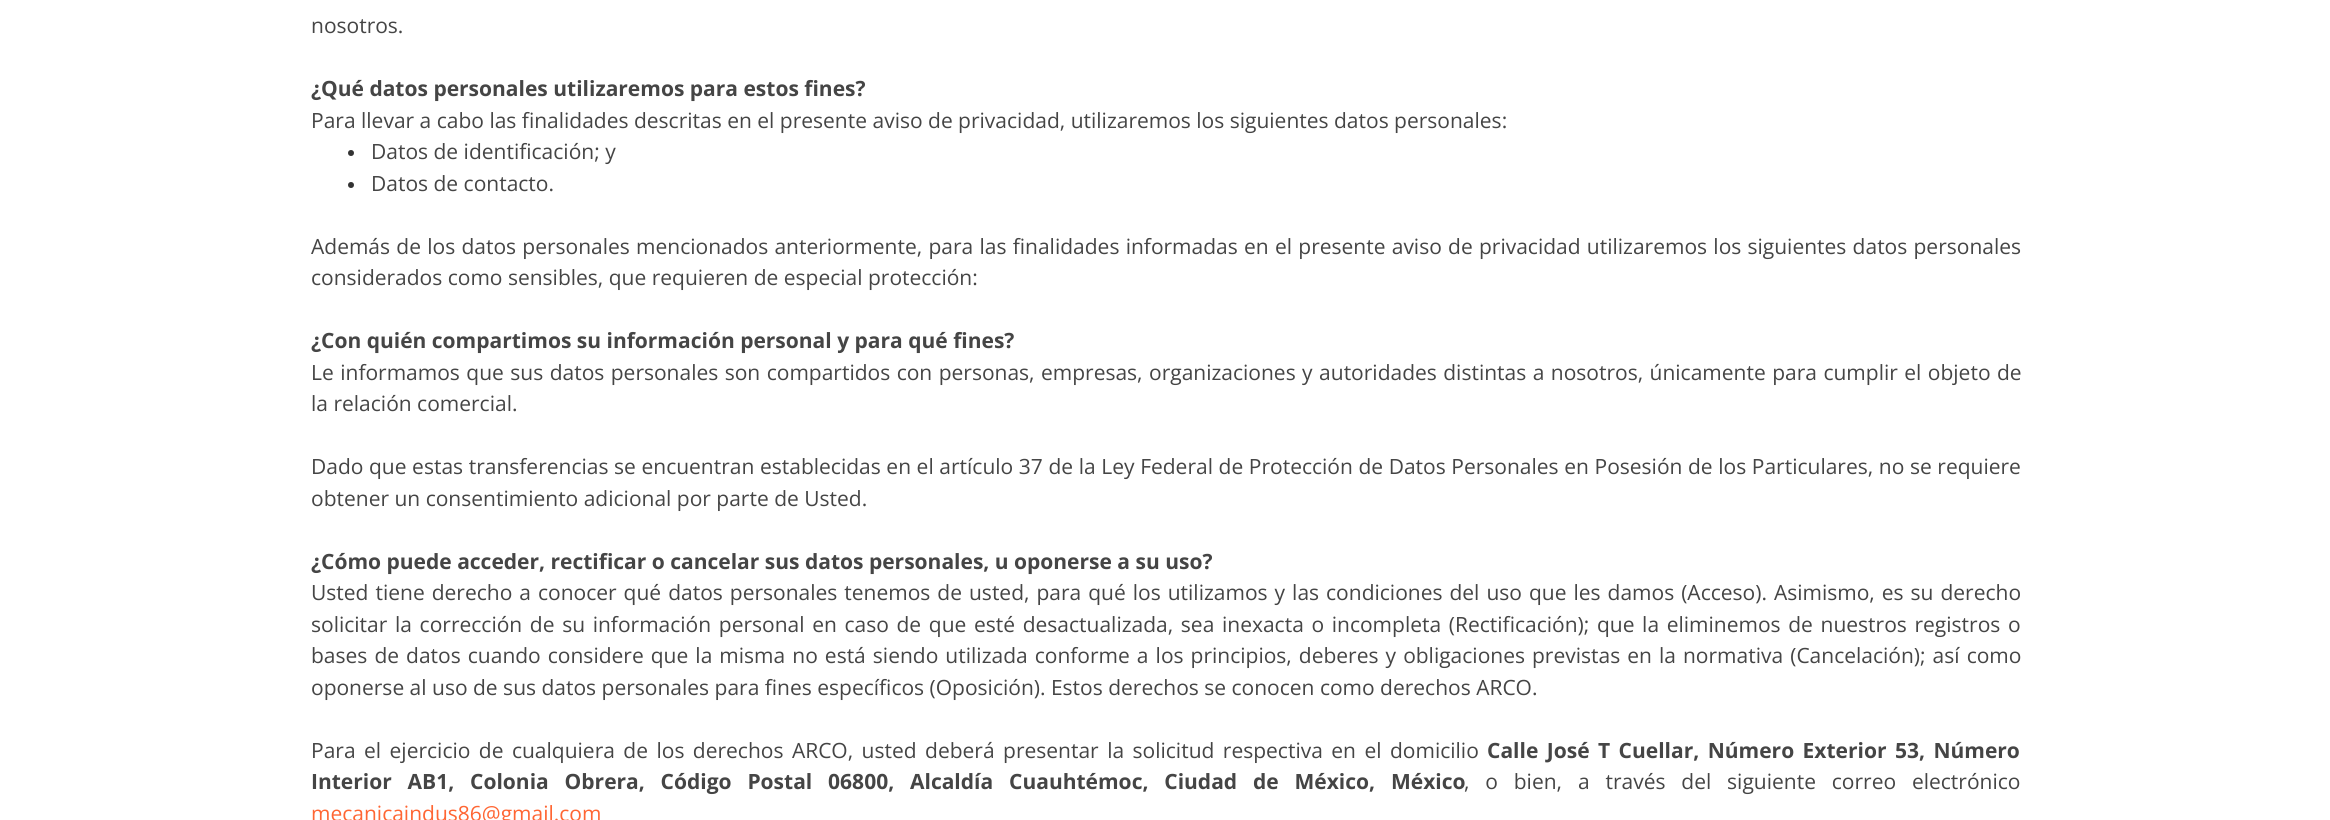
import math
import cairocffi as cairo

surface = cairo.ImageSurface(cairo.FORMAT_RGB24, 2330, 820)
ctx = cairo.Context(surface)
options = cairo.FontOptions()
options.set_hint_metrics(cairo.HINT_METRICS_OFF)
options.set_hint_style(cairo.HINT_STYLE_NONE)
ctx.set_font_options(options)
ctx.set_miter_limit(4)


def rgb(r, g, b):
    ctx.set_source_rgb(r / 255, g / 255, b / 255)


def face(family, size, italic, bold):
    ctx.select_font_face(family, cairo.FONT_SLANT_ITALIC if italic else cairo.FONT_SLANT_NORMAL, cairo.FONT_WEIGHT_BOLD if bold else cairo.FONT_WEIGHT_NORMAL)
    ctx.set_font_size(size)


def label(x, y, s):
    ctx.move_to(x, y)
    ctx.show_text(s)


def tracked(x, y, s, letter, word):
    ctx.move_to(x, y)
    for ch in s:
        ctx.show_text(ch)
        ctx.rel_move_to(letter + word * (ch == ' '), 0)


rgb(255, 255, 255)
ctx.paint()
face('Open Sans', 21, 0, 0)
rgb(69, 69, 69)
label(311, 33, 'nosotros.')
face('Open Sans', 21, 0, 1)
label(311, 96, '¿Qué datos personales utilizaremos para estos fines?')
face('Open Sans', 21, 0, 0)
label(311, 128, 'Para llevar a cabo las finalidades descritas en el presente aviso de privacidad, utilizaremos los siguientes datos personales:')
rgb(51, 51, 51)
ctx.new_path()
ctx.arc(351, 153, 3, 0, 2 * math.pi)
ctx.fill()
rgb(69, 69, 69)
label(371, 159, 'Datos de identificación; y')
rgb(51, 51, 51)
ctx.new_path()
ctx.arc(351, 185, 3, 0, 2 * math.pi)
ctx.fill()
rgb(69, 69, 69)
label(371, 191, 'Datos de contacto.')
tracked(311, 254, 'Además de los datos personales mencionados anteriormente, para las finalidades informadas en el presente aviso de privacidad utilizaremos los siguientes datos personales', 0, 0.8)
label(311, 285, 'considerados como sensibles, que requieren de especial protección:')
face('Open Sans', 21, 0, 1)
label(311, 348, '¿Con quién compartimos su información personal y para qué fines?')
face('Open Sans', 21, 0, 0)
tracked(311, 380, 'Le informamos que sus datos personales son compartidos con personas, empresas, organizaciones y autoridades distintas a nosotros, únicamente para cumplir el objeto de', 0, 1)
label(311, 411, 'la relación comercial.')
tracked(311, 474, 'Dado que estas transferencias se encuentran establecidas en el artículo 37 de la Ley Federal de Protección de Datos Personales en Posesión de los Particulares, no se requiere', 0, 0.15)
label(311, 506, 'obtener un consentimiento adicional por parte de Usted.')
face('Open Sans', 21, 0, 1)
label(311, 569, '¿Cómo puede acceder, rectificar o cancelar sus datos personales, u oponerse a su uso?')
face('Open Sans', 21, 0, 0)
tracked(311, 600, 'Usted tiene derecho a conocer qué datos personales tenemos de usted, para qué los utilizamos y las condiciones del uso que les damos (Acceso). Asimismo, es su derecho', 0, 1.55)
tracked(311, 632, 'solicitar la corrección de su información personal en caso de que esté desactualizada, sea inexacta o incompleta (Rectificación); que la eliminemos de nuestros registros o', 0, 2.2)
tracked(311, 663, 'bases de datos cuando considere que la misma no está siendo utilizada conforme a los principios, deberes y obligaciones previstas en la normativa (Cancelación); así como', 0, 1.6)
label(311, 695, 'oponerse al uso de sus datos personales para fines específicos (Oposición). Estos derechos se conocen como derechos ARCO.')
tracked(311, 758, 'Para el ejercicio de cualquiera de los derechos ARCO, usted deberá presentar la solicitud respectiva en el domicilio', 0, 3)
face('Open Sans', 21, 0, 1)
tracked(1487, 758, 'Calle José T Cuellar, Número Exterior 53, Número', 0, 3)
tracked(311, 789, 'Interior AB1, Colonia Obrera, Código Postal 06800, Alcaldía Cuauhtémoc, Ciudad de México, México', 0, 10.4)
face('Open Sans', 21, 0, 0)
tracked(1464, 789, ', o bien, a través del siguiente correo electrónico', 0, 10.4)
rgb(255, 102, 51)
label(311, 821, 'mecanicaindus86@gmail.com')
surface.write_to_png('render.png')
